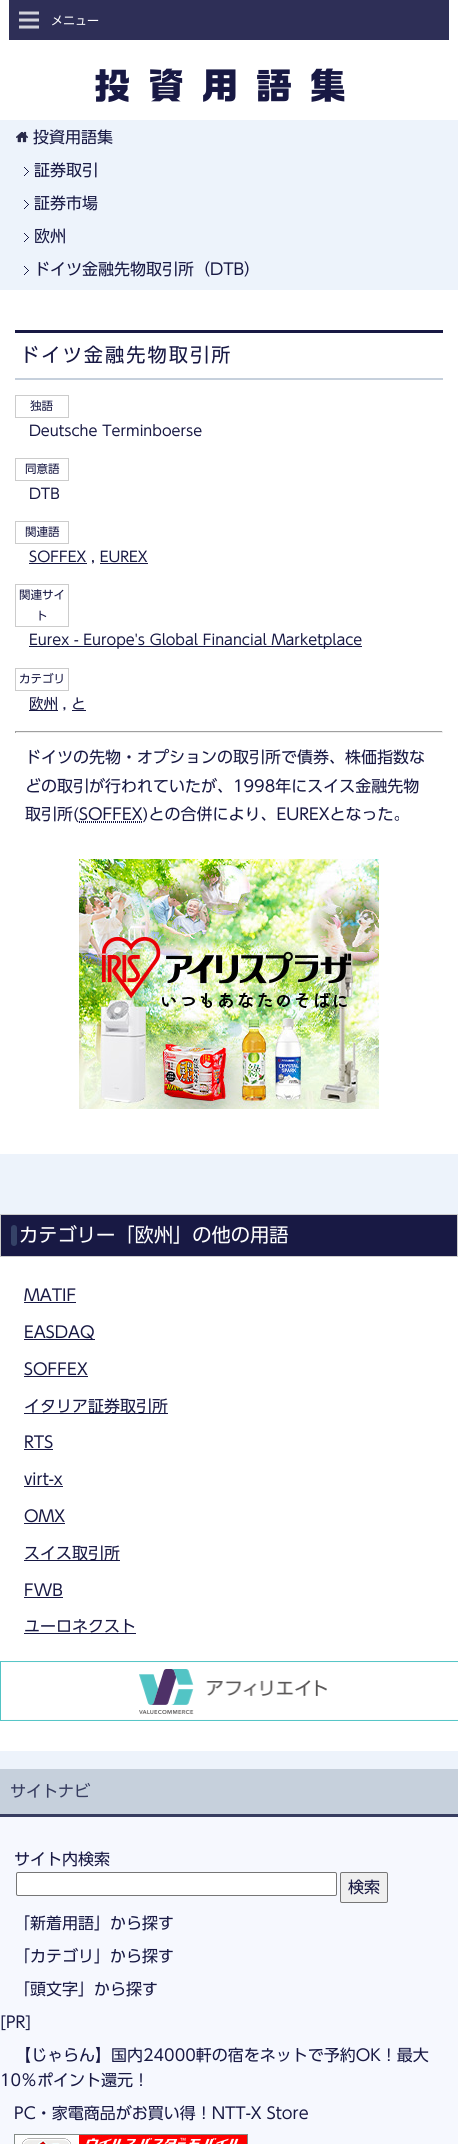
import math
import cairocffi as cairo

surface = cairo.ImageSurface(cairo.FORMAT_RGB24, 458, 2144)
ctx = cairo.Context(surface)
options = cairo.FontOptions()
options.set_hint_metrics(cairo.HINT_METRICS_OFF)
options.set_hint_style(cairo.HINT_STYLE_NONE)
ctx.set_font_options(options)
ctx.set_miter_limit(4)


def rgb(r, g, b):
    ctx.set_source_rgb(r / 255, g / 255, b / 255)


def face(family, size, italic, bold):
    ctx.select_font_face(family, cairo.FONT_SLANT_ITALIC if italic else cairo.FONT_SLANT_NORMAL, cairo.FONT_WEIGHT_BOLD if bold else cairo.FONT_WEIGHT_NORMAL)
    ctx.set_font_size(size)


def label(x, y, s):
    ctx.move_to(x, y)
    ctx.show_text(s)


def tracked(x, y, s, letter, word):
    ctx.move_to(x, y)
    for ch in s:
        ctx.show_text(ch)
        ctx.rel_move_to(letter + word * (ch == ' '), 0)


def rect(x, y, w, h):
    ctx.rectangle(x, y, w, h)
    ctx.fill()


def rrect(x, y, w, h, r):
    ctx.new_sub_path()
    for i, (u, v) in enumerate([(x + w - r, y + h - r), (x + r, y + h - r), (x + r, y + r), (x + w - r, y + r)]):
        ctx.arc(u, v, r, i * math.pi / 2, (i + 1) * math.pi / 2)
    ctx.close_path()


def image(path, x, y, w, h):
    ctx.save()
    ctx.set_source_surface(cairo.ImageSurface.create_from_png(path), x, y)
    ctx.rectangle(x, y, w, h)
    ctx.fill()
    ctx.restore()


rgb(237, 243, 251)
ctx.paint()
rgb(255, 255, 255)
rect(0, 0, 458, 120)
rgb(46, 47, 87)
rect(9, 0, 440, 40)
image('image0.png', 19, 11, 20, 18)
face('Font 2', 12, 0, 0)
rgb(255, 255, 255)
label(51, 25, 'メニュー')
face('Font', 36, 0, 0)
rgb(24, 25, 68)
tracked(94, 99, '投資用語集', 18, 0)
image('image1.png', 16, 131, 12, 12)
face('Font 2', 16, 0, 0)
label(33, 143, '投資用語集')
image('image2.png', 24, 167, 5, 9)
label(34, 176, '証券取引')
image('image2.png', 24, 200, 5, 9)
label(34, 209, '証券市場')
image('image2.png', 24, 233, 5, 9)
label(34, 242, '欧州')
image('image2.png', 24, 266, 5, 9)
label(34, 275, 'ドイツ金融先物取引所（DTB）')
rgb(255, 255, 255)
rect(0, 290, 458, 864)
rgb(24, 25, 68)
rect(15, 330, 428, 3)
rgb(198, 208, 220)
rect(15, 378, 428, 2)
face('Font 2', 19.25, 0, 0)
rgb(24, 25, 68)
tracked(20, 362, 'ドイツ金融先物取引所', 2, 0)
ctx.rectangle(15.5, 395.5, 53, 22)
rgb(204, 204, 204)
ctx.set_line_width(1)
ctx.stroke()
face('Font 2', 11.5, 0, 0)
rgb(24, 25, 68)
label(30, 410, '独語')
face('Font 2', 14.4, 0, 0)
label(29, 436, 'Deutsche Terminboerse')
ctx.rectangle(15.5, 458.5, 53, 22)
rgb(204, 204, 204)
ctx.stroke()
face('Font 2', 11.5, 0, 0)
rgb(24, 25, 68)
label(25, 473, '同意語')
face('Font 2', 14.4, 0, 0)
label(29, 499, 'DTB')
ctx.rectangle(15.5, 521.5, 53, 22)
rgb(204, 204, 204)
ctx.stroke()
face('Font 2', 11.5, 0, 0)
rgb(24, 25, 68)
label(25, 536, '関連語')
rgb(23, 24, 68)
rect(29, 563, 58, 1)
face('Font 2', 14.4, 0, 0)
rgb(24, 25, 68)
label(29, 562, 'SOFFEX , EUREX')
rgb(23, 24, 68)
rect(100, 563, 48, 1)
ctx.rectangle(15.5, 584.5, 53, 42)
rgb(204, 204, 204)
ctx.stroke()
face('Font 2', 11.5, 0, 0)
rgb(24, 25, 68)
label(19, 599, '関連サイ')
label(36, 620, 'ト')
rgb(23, 24, 68)
rect(29, 646, 333, 1)
face('Font 2', 14.4, 0, 0)
rgb(24, 25, 68)
label(29, 645, 'Eurex - Europe\'s Global Financial Marketplace')
ctx.rectangle(15.5, 668.5, 53, 22)
rgb(204, 204, 204)
ctx.stroke()
face('Font 2', 11.5, 0, 0)
rgb(24, 25, 68)
label(19, 683, 'カテゴリ')
rgb(23, 24, 68)
rect(29, 710, 29, 1)
face('Font 2', 14.4, 0, 0)
rgb(24, 25, 68)
label(29, 709, '欧州 , と')
rgb(23, 24, 68)
rect(72, 710, 14, 1)
rgb(159, 159, 159)
rect(15, 731, 428, 1)
rgb(238, 238, 238)
rect(442, 731, 1, 2)
rect(15, 732, 428, 1)
rgb(159, 159, 159)
rect(15, 731, 1, 2)
face('Font 2', 16, 0, 0)
rgb(24, 25, 68)
label(25, 763, 'ドイツの先物・オプションの取引所で債券、株価指数な')
label(25, 792, 'どの取引が行われていたが、1998年にスイス金融先物')
label(25, 820, '取引所(SOFFEX)との合併により、EUREXとなった。')
ctx.new_path()
ctx.move_to(79, 822.5)
ctx.line_to(142, 822.5)
ctx.move_to(79, 821.5)
ctx.line_to(142.5, 821.5)
rgb(23, 24, 68)
ctx.set_dash([1, 1])
ctx.stroke()
image('image3.png', 79, 859, 300, 250)
rgb(255, 255, 255)
rect(0, 1257, 458, 494)
rgb(24, 25, 68)
ctx.rectangle(0.5, 1214.5, 457, 42)
ctx.fill_preserve()
rgb(204, 204, 204)
ctx.set_dash([])
ctx.stroke()
rgb(53, 66, 103)
rrect(11, 1225, 6, 21, 3)
ctx.fill()
face('Font 2', 19.25, 0, 0)
rgb(255, 255, 255)
label(19, 1242, 'カテゴリー「欧州」の他の用語')
face('Font 2', 16, 0, 0)
rgb(24, 25, 68)
label(24, 1301, 'MATIF')
rgb(23, 24, 68)
rect(24, 1302, 52, 1)
rect(24, 1339, 71, 1)
rgb(24, 25, 68)
label(24, 1338, 'EASDAQ')
label(24, 1375, 'SOFFEX')
rgb(23, 24, 68)
rect(24, 1376, 64, 1)
rect(24, 1413, 144, 1)
rgb(24, 25, 68)
label(24, 1412, 'イタリア証券取引所')
label(24, 1448, 'RTS')
rgb(23, 24, 68)
rect(24, 1449, 29, 1)
rgb(24, 25, 68)
label(24, 1485, 'virt-x')
rgb(23, 24, 68)
rect(24, 1486, 39, 1)
rgb(24, 25, 68)
label(24, 1522, 'OMX')
rgb(23, 24, 68)
rect(24, 1523, 41, 1)
rect(24, 1560, 96, 1)
rgb(24, 25, 68)
label(24, 1559, 'スイス取引所')
label(24, 1596, 'FWB')
rgb(23, 24, 68)
rect(24, 1597, 39, 1)
rgb(24, 25, 68)
label(24, 1632, 'ユーロネクスト')
rgb(23, 24, 68)
rect(24, 1633, 112, 1)
image('image4.png', 0, 1661, 458, 60)
rgb(246, 248, 254)
rect(0, 1817, 458, 327)
rgb(198, 208, 220)
rect(0, 1769, 458, 45)
rgb(55, 61, 96)
rect(0, 1814, 458, 3)
label(10, 1797, 'サイトナビ')
rgb(24, 25, 68)
label(14, 1865, 'サイト内検索')
rgb(255, 255, 255)
rrect(16.5, 1872.5, 320, 23, 1.5)
ctx.fill_preserve()
rgb(118, 118, 118)
ctx.stroke()
rgb(239, 239, 239)
rrect(340.5, 1872.5, 47, 30, 1.5)
ctx.fill_preserve()
rgb(118, 118, 118)
ctx.stroke()
rgb(24, 25, 68)
label(348, 1893, '検索')
label(14, 1929, '「新着用語」から探す')
label(14, 1962, '「カテゴリ」から探す')
label(14, 1995, '「頭文字」から探す')
label(0, 2028, '[PR]')
label(15, 2061, '【じゃらん】国内24000軒の宿をネットで予約OK！最大')
label(0, 2086, '10％ポイント還元！')
label(14, 2119, 'PC・家電商品がお買い得！NTT-X Store')
image('image5.png', 14, 2134, 234, 10)
surface.write_to_png('render.png')
